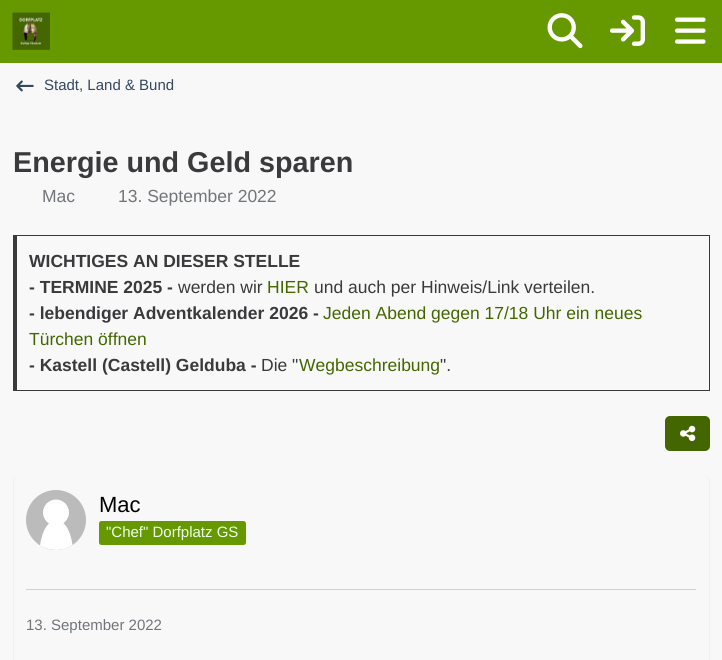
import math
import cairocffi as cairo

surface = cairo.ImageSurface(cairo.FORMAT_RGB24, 722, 660)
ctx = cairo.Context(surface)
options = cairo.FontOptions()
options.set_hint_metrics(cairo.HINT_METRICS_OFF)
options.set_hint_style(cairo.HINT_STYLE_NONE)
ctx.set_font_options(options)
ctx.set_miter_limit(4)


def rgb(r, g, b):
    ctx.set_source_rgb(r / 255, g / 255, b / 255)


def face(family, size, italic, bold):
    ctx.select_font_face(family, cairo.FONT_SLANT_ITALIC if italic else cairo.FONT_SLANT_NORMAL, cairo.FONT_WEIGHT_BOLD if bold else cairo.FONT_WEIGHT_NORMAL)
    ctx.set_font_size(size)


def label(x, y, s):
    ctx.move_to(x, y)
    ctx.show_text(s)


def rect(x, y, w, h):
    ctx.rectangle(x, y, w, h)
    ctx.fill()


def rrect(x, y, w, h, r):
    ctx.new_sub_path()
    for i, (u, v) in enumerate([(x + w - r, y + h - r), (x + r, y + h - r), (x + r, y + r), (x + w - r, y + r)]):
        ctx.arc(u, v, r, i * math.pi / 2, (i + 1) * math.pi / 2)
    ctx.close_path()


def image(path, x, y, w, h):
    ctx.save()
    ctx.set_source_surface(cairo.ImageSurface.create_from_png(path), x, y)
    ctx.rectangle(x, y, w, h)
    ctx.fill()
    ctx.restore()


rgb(248, 248, 248)
ctx.paint()
rgb(102, 153, 0)
rect(0, 0, 722, 63)
image('image0.png', 12, 12, 38, 38)
image('image1.png', 547, 13, 36, 36)
image('image2.png', 610, 15, 35, 31)
image('image3.png', 675, 17, 31, 27)
image('image4.png', 16, 80, 18, 12)
face('Liberation Sans', 15, 0, 0)
rgb(52, 73, 94)
label(44, 90, 'Stadt, Land & Bund')
face('Liberation Sans', 28.75, 0, 1)
rgb(58, 58, 61)
label(13, 172, 'Energie und Geld sparen')
face('Liberation Sans', 17.5, 0, 0)
rgb(113, 117, 122)
label(42, 202, 'Mac')
label(118, 202, '13. September 2022')
rgb(58, 58, 61)
rect(13, 235, 697, 1)
rect(709, 235, 1, 156)
rect(13, 390, 697, 1)
rect(13, 235, 4, 156)
face('Liberation Sans', 17.5, 0, 1)
label(29, 267, 'WICHTIGES AN DIESER STELLE')
label(29, 293, '- TERMINE 2025 -')
face('Liberation Sans', 17.5, 0, 0)
label(178, 293, 'werden wir')
rgb(68, 102, 0)
label(267, 293, 'HIER')
rgb(58, 58, 61)
label(314, 293, 'und auch per Hinweis/Link verteilen.')
face('Liberation Sans', 17.5, 0, 1)
label(29, 319, '- lebendiger Adventkalender 2026 -')
face('Liberation Sans', 17.5, 0, 0)
rgb(68, 102, 0)
label(323, 319, 'Jeden Abend gegen 17/18 Uhr ein neues')
label(29, 345, 'Türchen öffnen')
face('Liberation Sans', 17.5, 0, 1)
rgb(58, 58, 61)
label(29, 371, '- Kastell (Castell) Gelduba -')
face('Liberation Sans', 17.5, 0, 0)
label(261, 371, 'Die "')
rgb(68, 102, 0)
label(299, 371, 'Wegbeschreibung')
rgb(58, 58, 61)
label(440, 371, '".')
rgb(68, 102, 0)
rrect(665, 416, 45, 35, 5)
ctx.fill()
image('image5.png', 680, 425, 16, 17)
rrect(13.5, 476.5, 696, 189, 4.5)
rgb(236, 241, 247)
ctx.set_line_width(1)
ctx.stroke()
rgb(248, 248, 248)
ctx.new_path()
ctx.move_to(19, 476)
ctx.line_to(704, 476)
ctx.curve_to(707, 476, 709, 478, 709, 481)
ctx.line_to(709, 564)
ctx.line_to(14, 564)
ctx.line_to(14, 481)
ctx.curve_to(14, 478, 16, 476, 19, 476)
ctx.close_path()
ctx.fill()
rgb(187, 187, 187)
ctx.arc(56, 520, 30, 0, 2 * math.pi)
ctx.fill()
rgb(255, 255, 255)
ctx.new_path()
ctx.move_to(72.5, 545)
ctx.curve_to(63, 551.5, 50, 551.5, 40, 545.5)
ctx.curve_to(44.5, 512, 68, 511.5, 72.5, 545)
ctx.close_path()
ctx.fill()
ctx.arc(56, 512.5, 13, 0, 2 * math.pi)
ctx.fill()
face('Liberation Sans', 22, 0, 0)
rgb(0, 0, 0)
label(99, 512, 'Mac')
rgb(102, 153, 0)
rrect(99, 521, 147, 24, 2.5)
ctx.fill()
face('Liberation Sans', 15, 0, 0)
rgb(238, 255, 238)
label(106, 537, '"Chef" Dorfplatz GS')
rgb(209, 209, 209)
rect(26, 589, 670, 1)
rgb(113, 117, 122)
label(26, 630, '13. September 2022')
surface.write_to_png('render.png')
